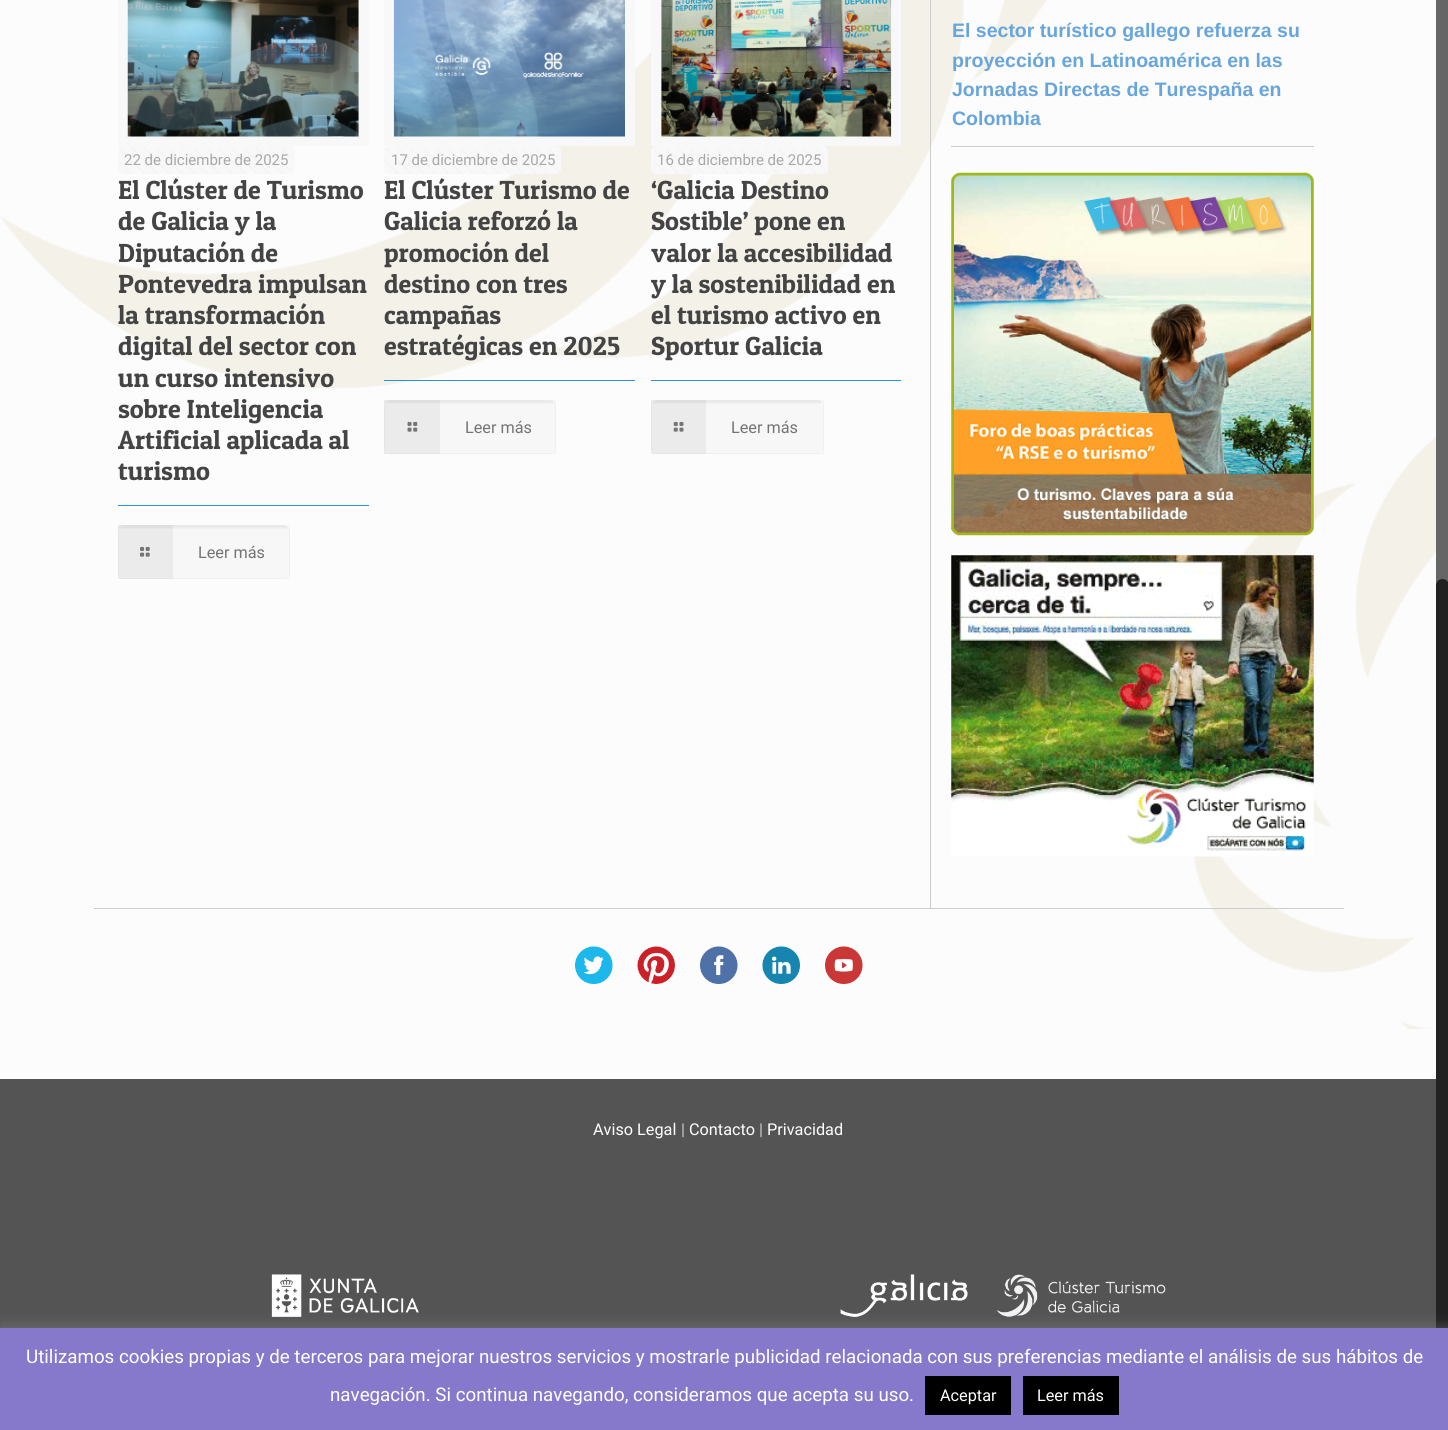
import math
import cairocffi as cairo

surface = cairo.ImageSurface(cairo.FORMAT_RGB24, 1448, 1430)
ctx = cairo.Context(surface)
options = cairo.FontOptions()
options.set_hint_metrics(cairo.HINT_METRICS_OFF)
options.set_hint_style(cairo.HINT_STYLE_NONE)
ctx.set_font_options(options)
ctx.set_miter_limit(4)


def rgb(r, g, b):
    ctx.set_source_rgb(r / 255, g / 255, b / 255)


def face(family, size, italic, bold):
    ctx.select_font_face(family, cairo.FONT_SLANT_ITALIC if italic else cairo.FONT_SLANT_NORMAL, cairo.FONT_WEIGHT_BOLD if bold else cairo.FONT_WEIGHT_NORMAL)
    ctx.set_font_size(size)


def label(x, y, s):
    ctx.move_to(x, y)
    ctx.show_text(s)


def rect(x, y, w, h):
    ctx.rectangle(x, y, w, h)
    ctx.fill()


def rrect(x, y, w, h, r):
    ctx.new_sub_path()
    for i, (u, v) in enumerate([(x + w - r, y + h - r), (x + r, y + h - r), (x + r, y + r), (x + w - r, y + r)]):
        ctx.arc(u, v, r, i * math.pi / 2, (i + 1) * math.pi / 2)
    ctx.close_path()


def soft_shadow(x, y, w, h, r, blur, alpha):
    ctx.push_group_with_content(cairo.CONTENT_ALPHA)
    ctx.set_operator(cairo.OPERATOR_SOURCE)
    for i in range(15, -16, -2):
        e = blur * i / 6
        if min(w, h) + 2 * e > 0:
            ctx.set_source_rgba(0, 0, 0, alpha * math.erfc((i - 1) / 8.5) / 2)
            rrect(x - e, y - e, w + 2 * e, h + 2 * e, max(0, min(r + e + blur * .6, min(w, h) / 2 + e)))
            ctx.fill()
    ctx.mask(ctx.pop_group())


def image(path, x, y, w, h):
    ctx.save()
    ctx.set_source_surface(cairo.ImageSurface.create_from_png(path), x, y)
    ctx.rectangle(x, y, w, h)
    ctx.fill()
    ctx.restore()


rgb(252, 252, 252)
ctx.paint()
image('image0.png', 0, 0, 1436, 1029)
rgb(204, 204, 204)
rect(930, 0, 1, 908)
rect(951, 146, 363, 1)
face('Liberation Sans', 19.5, 0, 1)
rgb(103, 165, 220)
label(952, 37, 'El sector turístico gallego refuerza su')
label(952, 67, 'proyección en Latinoamérica en las')
label(952, 96, 'Jornadas Directas de Turespaña en')
label(952, 125, 'Colombia')
image('image1.png', 951, 172, 363, 364)
image('image2.png', 951, 555, 363, 302)
ctx.rectangle(123, -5, 241, 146)
rgb(248, 248, 248)
ctx.set_line_width(10)
ctx.stroke()
image('image3.png', 127, 0, 232, 137)
rrect(118, 146, 177, 28, 5)
ctx.fill()
image('image4.png', 119, 148, 172, 26)
face('Roboto', 15, 0, 0)
rgb(168, 168, 168)
label(124, 165, '22 de diciembre de 2025')
face('Patua One', 26.25, 0, 0)
rgb(68, 68, 68)
label(118, 199, 'El Clúster de Turismo')
label(118, 230, 'de Galicia y la')
label(118, 262, 'Diputación de')
label(118, 293, 'Pontevedra impulsan')
label(118, 324, 'la transformación')
label(118, 355, 'digital del sector con')
label(118, 387, 'un curso intensivo')
label(118, 418, 'sobre Inteligencia')
label(118, 449, 'Artificial aplicada al')
label(118, 480, 'turismo')
rgb(41, 145, 214)
rect(118, 505, 251, 1)
rgb(247, 247, 247)
rrect(118, 525, 172, 54, 6)
ctx.fill()
image('image5.png', 119, 525, 170, 4)
ctx.rectangle(118.5, 525.5, 171, 53)
ctx.set_source_rgba(0, 0, 0, 0.03)
ctx.set_line_width(1)
ctx.stroke()
ctx.set_source_rgba(0, 0, 0, 0.05)
rect(118, 525, 55, 54)
image('image6.png', 140, 546, 10, 11)
face('Roboto', 16.25, 0, 0)
rgb(116, 116, 116)
label(198, 558, 'Leer más')
ctx.rectangle(389, -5, 241, 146)
rgb(248, 248, 248)
ctx.set_line_width(10)
ctx.stroke()
image('image7.png', 393, 0, 232, 137)
rrect(384, 146, 177, 28, 5)
ctx.fill()
image('image8.png', 384, 148, 176, 26)
face('Roboto', 15, 0, 0)
rgb(168, 168, 168)
label(391, 165, '17 de diciembre de 2025')
face('Patua One', 26.25, 0, 0)
rgb(68, 68, 68)
label(384, 199, 'El Clúster Turismo de')
label(384, 230, 'Galicia reforzó la')
label(384, 262, 'promoción del')
label(384, 293, 'destino con tres')
label(384, 324, 'campañas')
label(384, 355, 'estratégicas en 2025')
rgb(41, 145, 214)
rect(384, 380, 251, 1)
rgb(247, 247, 247)
rrect(384, 400, 172, 54, 6)
ctx.fill()
image('image9.png', 385, 400, 170, 4)
ctx.rectangle(384.5, 400.5, 171, 53)
ctx.set_source_rgba(0, 0, 0, 0.03)
ctx.set_line_width(1)
ctx.stroke()
ctx.set_source_rgba(0, 0, 0, 0.05)
rect(384, 400, 56, 54)
image('image10.png', 407, 421, 11, 11)
face('Roboto', 16.25, 0, 0)
rgb(116, 116, 116)
label(465, 433, 'Leer más')
ctx.rectangle(656, -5, 240, 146)
rgb(248, 248, 248)
ctx.set_line_width(10)
ctx.stroke()
image('image11.png', 661, 0, 231, 137)
rrect(651, 146, 177, 28, 5)
ctx.fill()
image('image12.png', 654, 148, 172, 26)
face('Roboto', 15, 0, 0)
rgb(168, 168, 168)
label(657, 165, '16 de diciembre de 2025')
face('Patua One', 26.25, 0, 0)
rgb(68, 68, 68)
label(651, 199, '‘Galicia Destino')
label(651, 230, 'Sostible’ pone en')
label(651, 262, 'valor la accesibilidad')
label(651, 293, 'y la sostenibilidad en')
label(651, 324, 'el turismo activo en')
label(651, 355, 'Sportur Galicia')
rgb(41, 145, 214)
rect(651, 380, 250, 1)
rgb(247, 247, 247)
rrect(651, 400, 173, 54, 6)
ctx.fill()
image('image13.png', 653, 400, 169, 4)
ctx.rectangle(651.5, 400.5, 172, 53)
ctx.set_source_rgba(0, 0, 0, 0.03)
ctx.set_line_width(1)
ctx.stroke()
ctx.set_source_rgba(0, 0, 0, 0.05)
rect(651, 400, 55, 54)
image('image14.png', 673, 421, 11, 11)
face('Roboto', 16.25, 0, 0)
rgb(116, 116, 116)
label(731, 433, 'Leer más')
rgb(204, 204, 204)
rect(94, 908, 1250, 1)
image('image15.png', 575, 946, 38, 38)
image('image16.png', 637, 946, 38, 38)
image('image17.png', 700, 946, 38, 38)
image('image18.png', 762, 946, 38, 38)
image('image19.png', 825, 946, 38, 38)
rgb(84, 84, 84)
rect(0, 1079, 1436, 249)
rgb(255, 255, 255)
label(593, 1135, 'Aviso Legal')
rgb(204, 204, 204)
label(681, 1135, '|')
rgb(255, 255, 255)
label(689, 1135, 'Contacto')
rgb(204, 204, 204)
label(759, 1135, '|')
rgb(255, 255, 255)
label(767, 1135, 'Privacidad')
image('image20.png', 271, 1274, 895, 43)
rgb(102, 102, 102)
rect(1436, 0, 12, 586)
rgb(34, 34, 34)
rrect(1436, 579, 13, 851, 6.5)
ctx.fill()
rgb(172, 171, 171)
soft_shadow(0, 1326, 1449, 103, 0, 6, 0.3)
rgb(134, 120, 203)
rect(0, 1328, 1448, 102)
face('Roboto', 18.75, 0, 0)
rgb(255, 255, 255)
label(26, 1363, 'Utilizamos cookies propias y de terceros para mejorar nuestros servicios y mostrarle publicidad relacionada con sus preferencias mediante el análisis de sus hábitos de')
label(330, 1401, 'navegación. Si continua navegando, consideramos que acepta su uso.')
rgb(0, 0, 0)
rect(925, 1376, 86, 39)
face('Roboto', 16.25, 0, 0)
rgb(255, 255, 255)
label(940, 1401, 'Aceptar')
rgb(0, 0, 0)
rect(1023, 1376, 96, 39)
rgb(255, 255, 255)
label(1037, 1401, 'Leer más')
surface.write_to_png('render.png')
